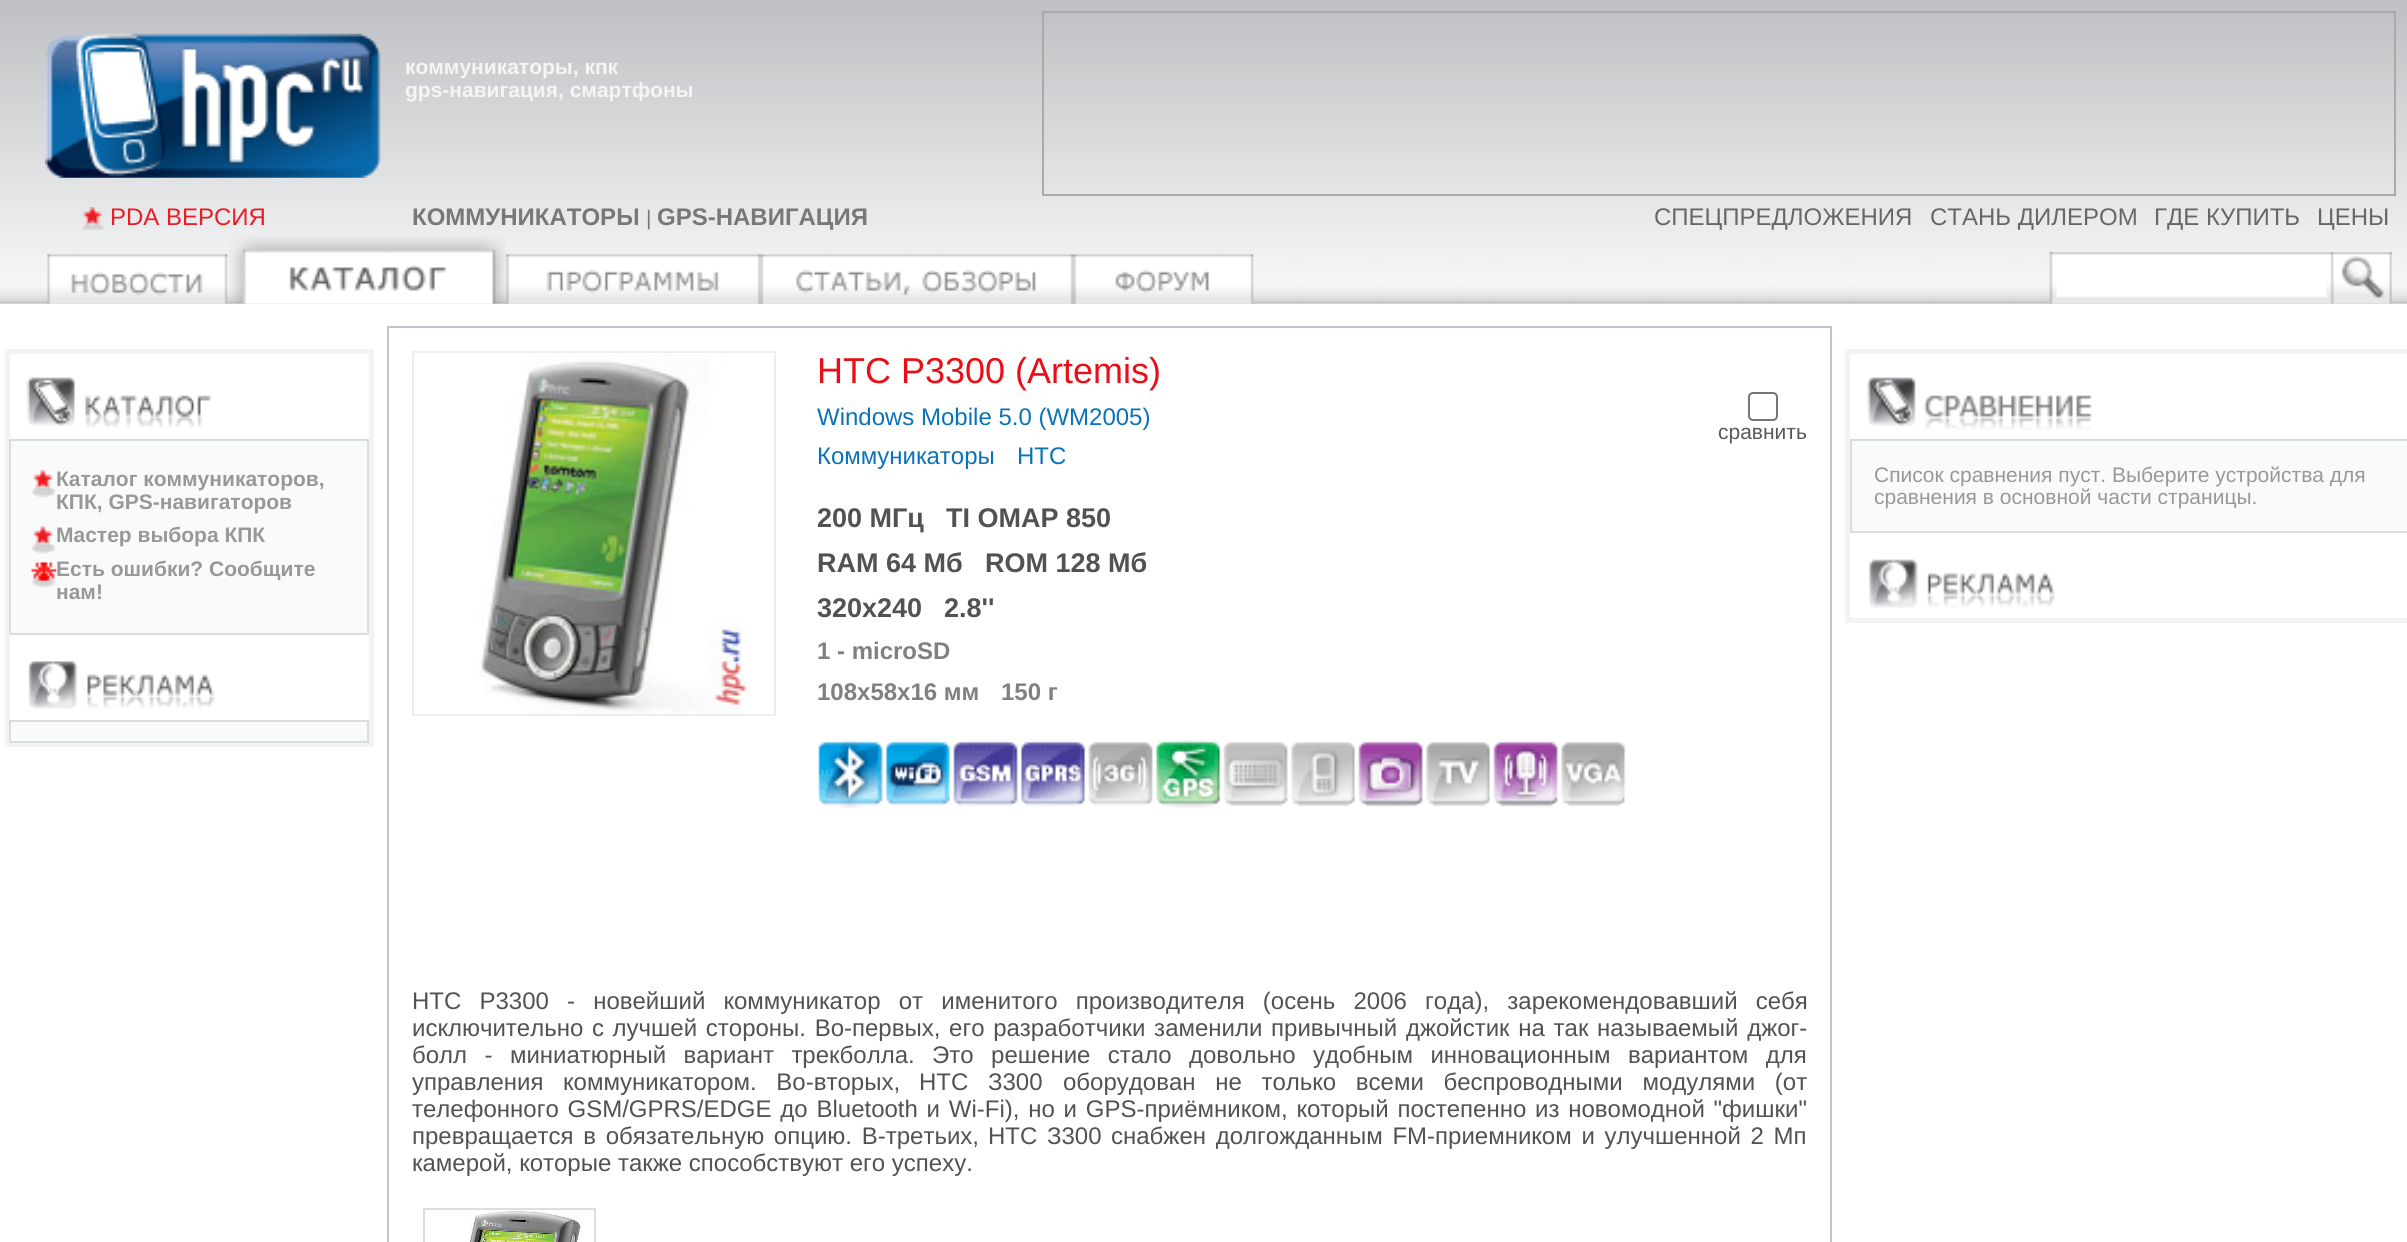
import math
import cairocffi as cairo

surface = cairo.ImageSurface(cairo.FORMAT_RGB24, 2407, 1242)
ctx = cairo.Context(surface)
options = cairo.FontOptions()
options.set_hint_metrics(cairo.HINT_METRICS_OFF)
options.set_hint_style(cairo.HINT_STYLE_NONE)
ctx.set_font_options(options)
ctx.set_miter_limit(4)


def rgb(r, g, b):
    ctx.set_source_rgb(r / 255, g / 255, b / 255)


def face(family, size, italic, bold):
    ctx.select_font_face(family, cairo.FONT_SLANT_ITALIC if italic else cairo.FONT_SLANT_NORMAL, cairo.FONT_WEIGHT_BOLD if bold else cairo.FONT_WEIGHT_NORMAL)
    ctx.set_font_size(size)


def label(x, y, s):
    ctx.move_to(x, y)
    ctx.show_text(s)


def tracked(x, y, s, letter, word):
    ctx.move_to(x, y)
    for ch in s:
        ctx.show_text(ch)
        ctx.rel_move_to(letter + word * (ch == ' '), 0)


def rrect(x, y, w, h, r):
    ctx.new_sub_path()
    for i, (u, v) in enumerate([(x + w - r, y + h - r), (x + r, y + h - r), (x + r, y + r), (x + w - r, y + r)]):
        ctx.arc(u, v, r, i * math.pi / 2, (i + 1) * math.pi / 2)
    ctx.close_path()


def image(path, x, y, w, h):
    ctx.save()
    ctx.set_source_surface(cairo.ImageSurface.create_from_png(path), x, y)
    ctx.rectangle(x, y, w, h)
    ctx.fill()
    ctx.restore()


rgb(255, 255, 255)
ctx.paint()
image('image0.png', 0, 0, 2407, 304)
image('image1.png', 45, 33, 336, 145)
face('Liberation Sans', 21, 0, 1)
rgb(244, 245, 245)
label(405, 74, 'коммуникаторы, кпк')
label(405, 97, 'gps-навигация, смартфоны')
ctx.rectangle(1043, 12, 1352, 183)
rgb(170, 170, 170)
ctx.stroke()
image('image2.png', 81, 207, 23, 23)
face('Liberation Sans', 24, 0, 0)
rgb(237, 28, 36)
label(110, 225, 'PDA ВЕРСИЯ')
face('Liberation Sans', 24, 0, 1)
rgb(119, 120, 121)
label(412, 225, 'КОММУНИКАТОРЫ')
face('Liberation Sans', 21, 0, 0)
label(646, 225, '|')
face('Liberation Sans', 24, 0, 1)
label(657, 225, 'GPS-НАВИГАЦИЯ')
face('Liberation Sans', 24, 0, 0)
rgb(102, 103, 104)
label(1654, 225, 'СПЕЦПРЕДЛОЖЕНИЯ')
label(1930, 225, 'СТАНЬ ДИЛЕРОМ')
label(2154, 225, 'ГДЕ КУПИТЬ')
label(2317, 225, 'ЦЕНЫ')
image('image3.png', 47, 254, 181, 50)
image('image4.png', 229, 236, 277, 68)
image('image5.png', 506, 254, 255, 50)
image('image6.png', 760, 254, 314, 50)
image('image7.png', 1073, 254, 181, 50)
image('image8.png', 2049, 252, 343, 52)
ctx.rectangle(7.5, 351.5, 364, 393)
rgb(243, 243, 244)
ctx.set_line_width(5)
ctx.stroke()
image('image9.png', 26, 377, 186, 51)
rgb(249, 250, 250)
ctx.rectangle(10, 440, 358, 194)
ctx.fill_preserve()
rgb(219, 220, 221)
ctx.set_line_width(2)
ctx.stroke()
image('image10.png', 31, 470, 25, 28)
face('Liberation Sans', 21, 0, 1)
rgb(151, 152, 154)
label(56, 486, 'Каталог коммуникаторов,')
label(56, 509, 'КПК, GPS-навигаторов')
image('image11.png', 31, 526, 25, 28)
label(56, 542, 'Мастер выбора КПК')
image('image12.png', 31, 562, 26, 26)
label(56, 576, 'Есть ошибки? Сообщите')
label(56, 599, 'нам!')
image('image13.png', 28, 661, 187, 48)
rgb(249, 250, 250)
ctx.rectangle(10, 721, 358, 21)
ctx.fill_preserve()
rgb(219, 220, 221)
ctx.stroke()
ctx.rectangle(388, 327, 1443, 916)
rgb(194, 193, 202)
ctx.stroke()
ctx.rectangle(413, 352, 362, 363)
rgb(238, 238, 238)
ctx.stroke()
image('image14.png', 478, 354, 274, 359)
face('Liberation Sans', 36, 0, 0)
rgb(235, 14, 23)
label(817, 383, 'HTC P3300 (Artemis)')
face('Liberation Sans', 24, 0, 0)
rgb(9, 115, 186)
label(817, 425, 'Windows Mobile 5.0 (WM2005)')
label(817, 464, 'Коммуникаторы')
label(1017, 464, 'HTC')
face('Liberation Sans', 27, 0, 1)
rgb(82, 82, 84)
label(817, 527, '200 МГц')
label(946, 527, 'TI OMAP 850')
label(817, 572, 'RAM 64 Мб')
label(985, 572, 'ROM 128 Мб')
label(817, 617, '320x240')
label(944, 617, '2.8\'\'')
face('Liberation Sans', 24, 0, 1)
rgb(128, 128, 128)
label(817, 659, '1 - miсroSD')
label(817, 700, '108x58x16 мм')
label(1001, 700, '150 г')
image('image15.png', 818, 740, 65, 68)
image('image16.png', 886, 740, 65, 66)
image('image17.png', 953, 740, 65, 66)
image('image18.png', 1021, 740, 65, 66)
image('image19.png', 1088, 742, 65, 64)
image('image20.png', 1156, 740, 65, 68)
image('image21.png', 1223, 742, 65, 65)
image('image22.png', 1291, 742, 65, 65)
image('image23.png', 1358, 740, 65, 67)
image('image24.png', 1426, 742, 65, 65)
image('image25.png', 1493, 740, 65, 67)
image('image26.png', 1561, 742, 66, 65)
rrect(1749, 393, 28, 27, 4)
rgb(118, 118, 118)
ctx.stroke()
face('Liberation Sans', 21, 0, 0)
rgb(88, 88, 90)
label(1718, 439, 'сравнить')
face('Liberation Sans', 24, 0, 0)
rgb(82, 82, 84)
tracked(412, 1009, 'HTC P3300', 0, 11.5)
tracked(567, 1009, '- новейший коммуникатор от именитого производителя (осень 2006 года), зарекомендовавший себя', 0, 11.5)
tracked(412, 1036, 'исключительно с лучшей стороны. Во-первых, его разработчики заменили привычный джойстик на так называемый джог-', 0, 2)
tracked(412, 1063, 'болл - миниатюрный вариант трекболла. Это решение стало довольно удобным инновационным вариантом для', 0, 10.75)
tracked(412, 1090, 'управления коммуникатором. Во-вторых,', 0, 13)
tracked(919, 1090, 'HTC З300', 0, 13)
tracked(1063, 1090, 'оборудован не только всеми беспроводными модулями (от', 0, 13)
tracked(412, 1117, 'телефонного GSM/GPRS/EDGE до Bluetooth и Wi-Fi), но и GPS-приёмником, который постепенно из новомодной "фишки"', 0, 2.1)
tracked(412, 1144, 'превращается в обязательную опцию. В-третьих,', 0, 3)
tracked(988, 1144, 'HTC З300', 0, 3)
tracked(1111, 1144, 'cнабжен долгожданным FM-приемником и улучшенной 2 Мп', 0, 3)
label(412, 1171, 'камерой, которые также способствуют его успеху.')
ctx.rectangle(424, 1209, 171, 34)
rgb(221, 221, 221)
ctx.stroke()
image('image27.png', 469, 1210, 114, 32)
ctx.rectangle(1847.5, 351.5, 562, 269)
rgb(243, 243, 244)
ctx.set_line_width(5)
ctx.stroke()
image('image28.png', 1867, 377, 226, 53)
rgb(249, 250, 250)
ctx.rectangle(1851, 440, 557, 92)
ctx.fill_preserve()
rgb(219, 220, 221)
ctx.set_line_width(2)
ctx.stroke()
face('Liberation Sans', 21, 0, 0)
rgb(151, 152, 154)
label(1874, 482, 'Список сравнения пуст. Выберите устройства для')
label(1874, 504, 'сравнения в основной части страницы.')
image('image29.png', 1869, 559, 186, 49)
surface.write_to_png('render.png')
